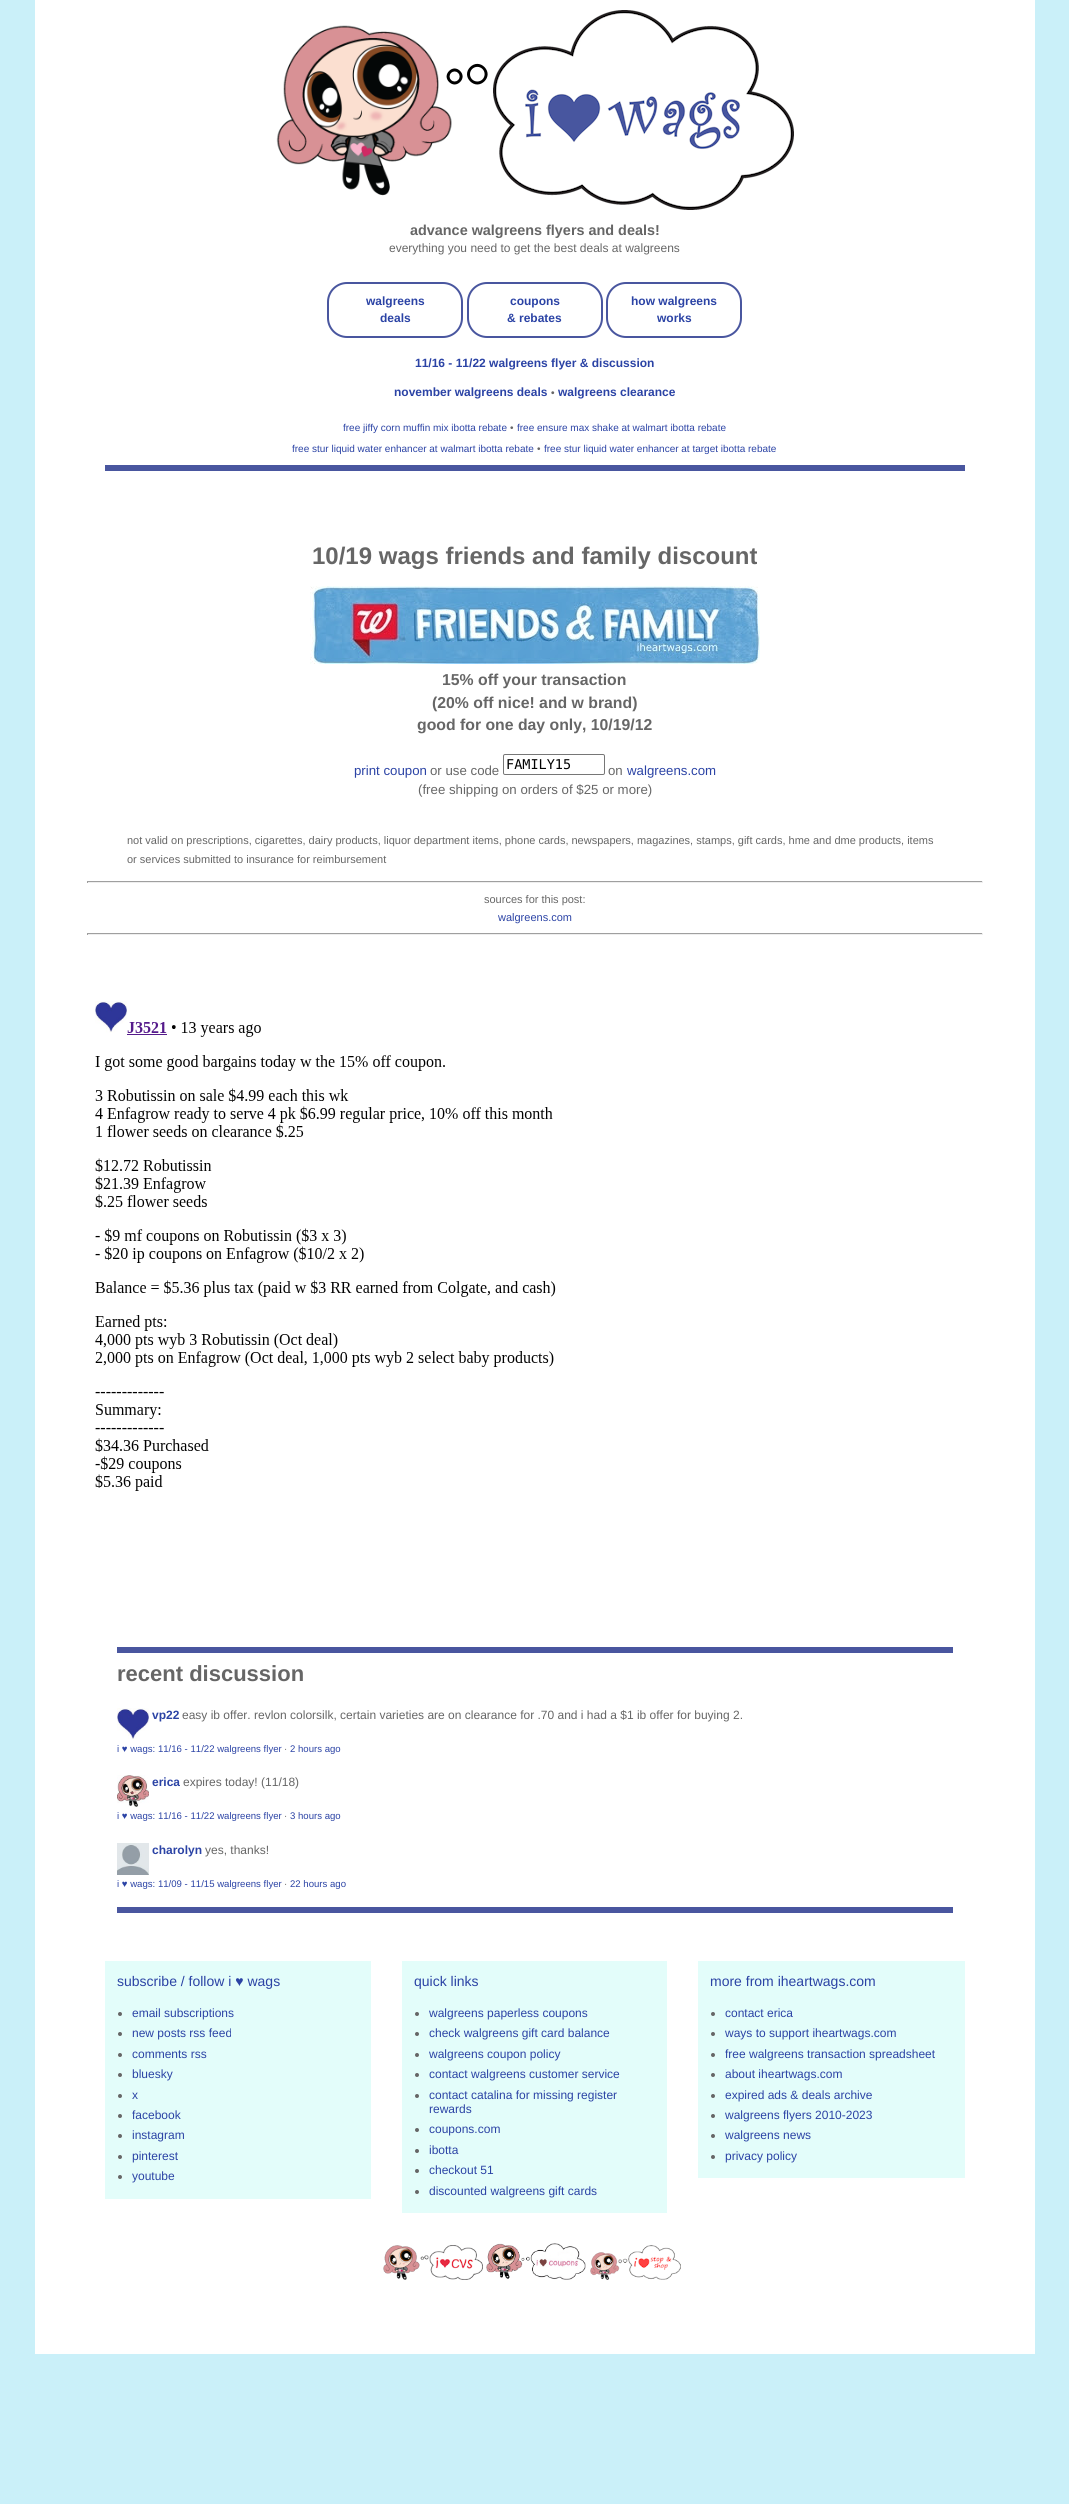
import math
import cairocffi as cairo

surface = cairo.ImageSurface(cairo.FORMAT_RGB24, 1069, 2504)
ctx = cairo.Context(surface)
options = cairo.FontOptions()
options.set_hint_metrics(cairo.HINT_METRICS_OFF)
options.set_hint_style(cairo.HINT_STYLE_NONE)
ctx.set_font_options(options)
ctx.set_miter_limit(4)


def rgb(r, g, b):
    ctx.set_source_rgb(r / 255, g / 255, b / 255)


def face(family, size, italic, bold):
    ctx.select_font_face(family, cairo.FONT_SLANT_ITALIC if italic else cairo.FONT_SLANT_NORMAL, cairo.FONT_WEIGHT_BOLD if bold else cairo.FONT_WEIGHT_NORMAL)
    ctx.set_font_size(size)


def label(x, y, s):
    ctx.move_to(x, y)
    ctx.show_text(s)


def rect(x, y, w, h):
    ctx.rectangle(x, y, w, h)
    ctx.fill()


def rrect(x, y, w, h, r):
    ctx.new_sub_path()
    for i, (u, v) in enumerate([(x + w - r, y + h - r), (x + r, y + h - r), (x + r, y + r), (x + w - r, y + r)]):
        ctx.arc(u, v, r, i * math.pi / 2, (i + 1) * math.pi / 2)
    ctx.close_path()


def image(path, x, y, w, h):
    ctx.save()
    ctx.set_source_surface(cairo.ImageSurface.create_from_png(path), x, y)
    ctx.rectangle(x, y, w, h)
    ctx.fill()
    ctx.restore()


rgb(202, 240, 249)
ctx.paint()
rgb(255, 255, 255)
rect(35, 0, 1000, 2354)
image('image0.png', 276, 10, 518, 200)
face('Liberation Sans', 14.4, 0, 1)
rgb(102, 102, 102)
label(410, 235, 'advance walgreens flyers and deals!')
face('Liberation Sans', 12, 0, 0)
label(389, 252, 'everything you need to get the best deals at walgreens')
rrect(328, 283, 134, 54, 19)
rgb(73, 86, 159)
ctx.stroke()
face('Liberation Sans', 12, 0, 1)
rgb(43, 67, 165)
label(366, 305, 'walgreens')
label(380, 322, 'deals')
rrect(468, 283, 134, 54, 19)
rgb(73, 86, 159)
ctx.stroke()
rgb(43, 67, 165)
label(510, 305, 'coupons')
label(507, 322, '& rebates')
rrect(607, 283, 134, 54, 19)
rgb(73, 86, 159)
ctx.stroke()
rgb(43, 67, 165)
label(631, 305, 'how walgreens')
label(657, 322, 'works')
label(415, 367, '11/16 - 11/22 walgreens flyer & discussion')
label(394, 396, 'november walgreens deals')
face('Liberation Sans', 10, 0, 1)
rgb(102, 102, 102)
label(551, 396, '•')
face('Liberation Sans', 12, 0, 1)
rgb(43, 67, 165)
label(558, 396, 'walgreens clearance')
face('Liberation Sans', 10, 0, 0)
label(343, 431, 'free jiffy corn muffin mix ibotta rebate')
rgb(102, 102, 102)
label(510, 431, '•')
rgb(43, 67, 165)
label(517, 431, 'free ensure max shake at walmart ibotta rebate')
label(292, 452, 'free stur liquid water enhancer at walmart ibotta rebate')
rgb(102, 102, 102)
label(537, 452, '•')
rgb(43, 67, 165)
label(544, 452, 'free stur liquid water enhancer at target ibotta rebate')
rgb(73, 86, 159)
rect(105, 465, 860, 6)
face('Liberation Sans', 24, 0, 1)
rgb(102, 102, 102)
label(312, 564, '10/19 wags friends and family discount')
image('image1.png', 310, 586, 450, 78)
face('Liberation Sans', 15.8, 0, 1)
label(442, 685, '15% off your transaction')
label(432, 708, '(20% off nice! and w brand)')
label(417, 730, 'good for one day only, 10/19/12')
face('Liberation Sans', 13.25, 0, 0)
rgb(43, 67, 165)
label(354, 775, 'print coupon')
rgb(102, 102, 102)
label(430, 775, 'or use code')
rrect(503.5, 754.5, 101, 20, 1.5)
rgb(118, 118, 118)
ctx.set_line_width(1)
ctx.stroke()
face('DejaVu Sans Mono', 13.5, 0, 0)
rgb(0, 0, 0)
label(506, 769, 'FAMILY15')
face('Liberation Sans', 13.25, 0, 0)
rgb(102, 102, 102)
label(608, 775, 'on')
rgb(43, 67, 165)
label(627, 775, 'walgreens.com')
rgb(102, 102, 102)
label(418, 794, '(free shipping on orders of $25 or more)')
face('Liberation Sans', 11, 0, 0)
label(127, 844, 'not valid on prescriptions, cigarettes, dairy products, liquor department items, phone cards, newspapers, magazines, stamps, gift cards, hme and dme products, items')
label(127, 863, 'or services submitted to insurance for reimbursement')
rgb(159, 159, 159)
rect(87, 881, 896, 1)
rgb(238, 238, 238)
rect(982, 881, 1, 2)
rect(87, 882, 896, 1)
rgb(159, 159, 159)
rect(87, 881, 1, 2)
rgb(102, 102, 102)
label(484, 903, 'sources for this post:')
rgb(43, 67, 165)
label(498, 921, 'walgreens.com')
rgb(159, 159, 159)
rect(87, 933, 896, 1)
rgb(238, 238, 238)
rect(982, 933, 1, 2)
rect(87, 934, 896, 1)
rgb(159, 159, 159)
rect(87, 933, 1, 2)
image('image2.png', 95, 1001, 461, 490)
rgb(73, 86, 159)
rect(117, 1647, 836, 6)
face('Liberation Sans', 22, 0, 1)
rgb(102, 102, 102)
label(117, 1681, 'recent discussion')
image('image3.png', 117, 1708, 32, 32)
face('Liberation Sans', 12, 0, 1)
rgb(43, 67, 165)
label(152, 1719, 'vp22')
face('Liberation Sans', 12, 0, 0)
rgb(102, 102, 102)
label(182, 1719, 'easy ib offer. revlon colorsilk, certain varieties are on clearance for .70 and i had a $1 ib offer for buying 2.')
face('Liberation Sans', 9.6, 0, 0)
rgb(43, 67, 165)
label(117, 1752, 'i ♥ wags: 11/16 - 11/22 walgreens flyer')
rgb(102, 102, 102)
label(284, 1752, '·')
rgb(43, 67, 165)
label(290, 1752, '2 hours ago')
image('image4.png', 117, 1775, 32, 32)
face('Liberation Sans', 12, 0, 1)
label(152, 1786, 'erica')
face('Liberation Sans', 12, 0, 0)
rgb(102, 102, 102)
label(183, 1786, 'expires today! (11/18)')
face('Liberation Sans', 9.6, 0, 0)
rgb(43, 67, 165)
label(117, 1819, 'i ♥ wags: 11/16 - 11/22 walgreens flyer')
rgb(102, 102, 102)
label(284, 1819, '·')
rgb(43, 67, 165)
label(290, 1819, '3 hours ago')
image('image5.png', 117, 1843, 32, 32)
face('Liberation Sans', 12, 0, 1)
label(152, 1854, 'charolyn')
face('Liberation Sans', 12, 0, 0)
rgb(102, 102, 102)
label(205, 1854, 'yes, thanks!')
face('Liberation Sans', 9.6, 0, 0)
rgb(43, 67, 165)
label(117, 1887, 'i ♥ wags: 11/09 - 11/15 walgreens flyer')
rgb(102, 102, 102)
label(284, 1887, '·')
rgb(43, 67, 165)
label(290, 1887, '22 hours ago')
rgb(73, 86, 159)
rect(117, 1907, 836, 6)
rgb(227, 253, 250)
rect(105, 1961, 266, 238)
face('Liberation Sans', 14, 0, 0)
rgb(43, 67, 165)
label(117, 1986, 'subscribe / follow i ♥ wags')
rgb(102, 102, 102)
ctx.new_path()
ctx.arc(120, 2014, 2, 0, 2 * math.pi)
ctx.fill()
face('Liberation Sans', 12, 0, 0)
rgb(43, 67, 165)
label(132, 2017, 'email subscriptions')
rgb(102, 102, 102)
ctx.new_path()
ctx.arc(120, 2034, 2, 0, 2 * math.pi)
ctx.fill()
rgb(43, 67, 165)
label(132, 2037, 'new posts rss feed')
rgb(102, 102, 102)
ctx.new_path()
ctx.arc(120, 2055, 2, 0, 2 * math.pi)
ctx.fill()
rgb(43, 67, 165)
label(132, 2058, 'comments rss')
rgb(102, 102, 102)
ctx.new_path()
ctx.arc(120, 2075, 2, 0, 2 * math.pi)
ctx.fill()
rgb(43, 67, 165)
label(132, 2078, 'bluesky')
rgb(102, 102, 102)
ctx.new_path()
ctx.arc(120, 2096, 2, 0, 2 * math.pi)
ctx.fill()
rgb(43, 67, 165)
label(132, 2099, 'x')
rgb(102, 102, 102)
ctx.new_path()
ctx.arc(120, 2116, 2, 0, 2 * math.pi)
ctx.fill()
rgb(43, 67, 165)
label(132, 2119, 'facebook')
rgb(102, 102, 102)
ctx.new_path()
ctx.arc(120, 2136, 2, 0, 2 * math.pi)
ctx.fill()
rgb(43, 67, 165)
label(132, 2139, 'instagram')
rgb(102, 102, 102)
ctx.new_path()
ctx.arc(120, 2157, 2, 0, 2 * math.pi)
ctx.fill()
rgb(43, 67, 165)
label(132, 2160, 'pinterest')
rgb(102, 102, 102)
ctx.new_path()
ctx.arc(120, 2177, 2, 0, 2 * math.pi)
ctx.fill()
rgb(43, 67, 165)
label(132, 2180, 'youtube')
rgb(227, 253, 250)
rect(402, 1961, 265, 252)
face('Liberation Sans', 14, 0, 0)
rgb(43, 67, 165)
label(414, 1986, 'quick links')
rgb(102, 102, 102)
ctx.new_path()
ctx.arc(417, 2014, 2, 0, 2 * math.pi)
ctx.fill()
face('Liberation Sans', 12, 0, 0)
rgb(43, 67, 165)
label(429, 2017, 'walgreens paperless coupons')
rgb(102, 102, 102)
ctx.new_path()
ctx.arc(417, 2034, 2, 0, 2 * math.pi)
ctx.fill()
rgb(43, 67, 165)
label(429, 2037, 'check walgreens gift card balance')
rgb(102, 102, 102)
ctx.new_path()
ctx.arc(417, 2055, 2, 0, 2 * math.pi)
ctx.fill()
rgb(43, 67, 165)
label(429, 2058, 'walgreens coupon policy')
rgb(102, 102, 102)
ctx.new_path()
ctx.arc(417, 2075, 2, 0, 2 * math.pi)
ctx.fill()
rgb(43, 67, 165)
label(429, 2078, 'contact walgreens customer service')
rgb(102, 102, 102)
ctx.new_path()
ctx.arc(417, 2096, 2, 0, 2 * math.pi)
ctx.fill()
rgb(43, 67, 165)
label(429, 2099, 'contact catalina for missing register')
label(429, 2113, 'rewards')
rgb(102, 102, 102)
ctx.new_path()
ctx.arc(417, 2130, 2, 0, 2 * math.pi)
ctx.fill()
rgb(43, 67, 165)
label(429, 2133, 'coupons.com')
rgb(102, 102, 102)
ctx.new_path()
ctx.arc(417, 2151, 2, 0, 2 * math.pi)
ctx.fill()
rgb(43, 67, 165)
label(429, 2154, 'ibotta')
rgb(102, 102, 102)
ctx.new_path()
ctx.arc(417, 2171, 2, 0, 2 * math.pi)
ctx.fill()
rgb(43, 67, 165)
label(429, 2174, 'checkout 51')
rgb(102, 102, 102)
ctx.new_path()
ctx.arc(417, 2192, 2, 0, 2 * math.pi)
ctx.fill()
rgb(43, 67, 165)
label(429, 2195, 'discounted walgreens gift cards')
rgb(227, 253, 250)
rect(698, 1961, 267, 217)
face('Liberation Sans', 14, 0, 0)
rgb(43, 67, 165)
label(710, 1986, 'more from iheartwags.com')
rgb(102, 102, 102)
ctx.new_path()
ctx.arc(713, 2014, 2, 0, 2 * math.pi)
ctx.fill()
face('Liberation Sans', 12, 0, 0)
rgb(43, 67, 165)
label(725, 2017, 'contact erica')
rgb(102, 102, 102)
ctx.new_path()
ctx.arc(713, 2034, 2, 0, 2 * math.pi)
ctx.fill()
rgb(43, 67, 165)
label(725, 2037, 'ways to support iheartwags.com')
rgb(102, 102, 102)
ctx.new_path()
ctx.arc(713, 2055, 2, 0, 2 * math.pi)
ctx.fill()
rgb(43, 67, 165)
label(725, 2058, 'free walgreens transaction spreadsheet')
rgb(102, 102, 102)
ctx.new_path()
ctx.arc(713, 2075, 2, 0, 2 * math.pi)
ctx.fill()
rgb(43, 67, 165)
label(725, 2078, 'about iheartwags.com')
rgb(102, 102, 102)
ctx.new_path()
ctx.arc(713, 2096, 2, 0, 2 * math.pi)
ctx.fill()
rgb(43, 67, 165)
label(725, 2099, 'expired ads & deals archive')
rgb(102, 102, 102)
ctx.new_path()
ctx.arc(713, 2116, 2, 0, 2 * math.pi)
ctx.fill()
rgb(43, 67, 165)
label(725, 2119, 'walgreens flyers 2010-2023')
rgb(102, 102, 102)
ctx.new_path()
ctx.arc(713, 2136, 2, 0, 2 * math.pi)
ctx.fill()
rgb(43, 67, 165)
label(725, 2139, 'walgreens news')
rgb(102, 102, 102)
ctx.new_path()
ctx.arc(713, 2157, 2, 0, 2 * math.pi)
ctx.fill()
rgb(43, 67, 165)
label(725, 2160, 'privacy policy')
image('image6.png', 383, 2245, 100, 35)
image('image7.png', 486, 2243, 100, 37)
image('image8.png', 590, 2245, 91, 35)
surface.write_to_png('render.png')
